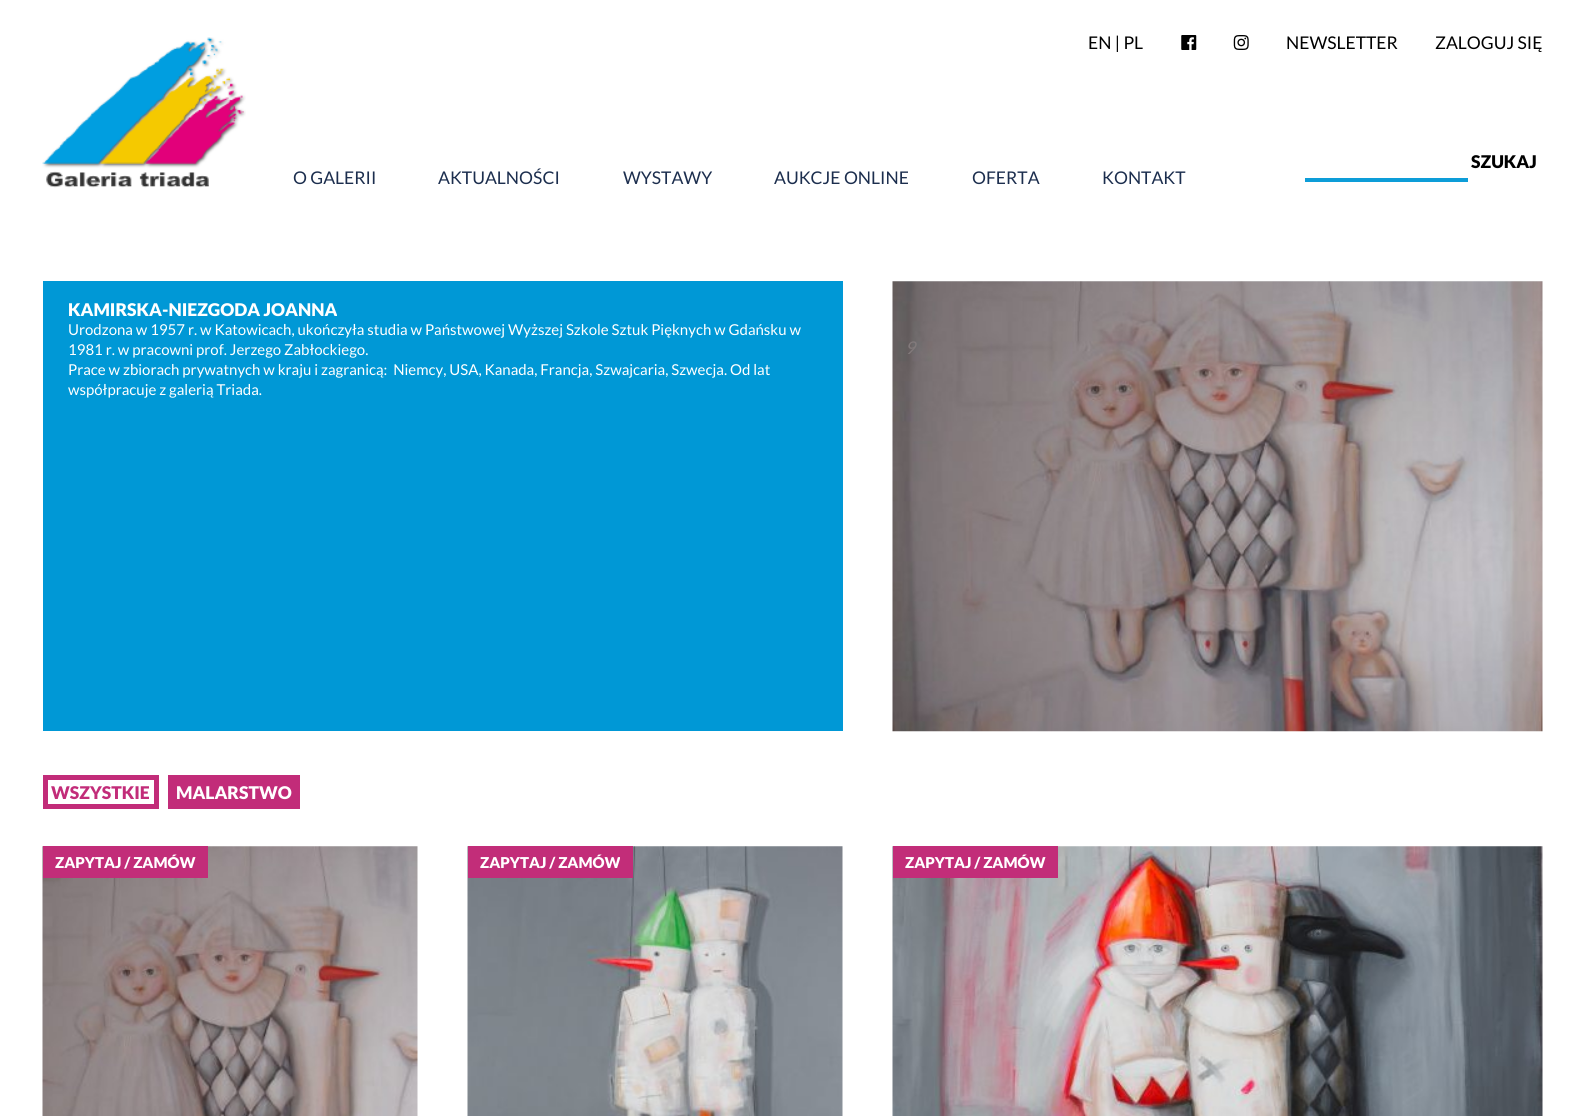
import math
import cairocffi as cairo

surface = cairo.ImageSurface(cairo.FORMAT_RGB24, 1584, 1116)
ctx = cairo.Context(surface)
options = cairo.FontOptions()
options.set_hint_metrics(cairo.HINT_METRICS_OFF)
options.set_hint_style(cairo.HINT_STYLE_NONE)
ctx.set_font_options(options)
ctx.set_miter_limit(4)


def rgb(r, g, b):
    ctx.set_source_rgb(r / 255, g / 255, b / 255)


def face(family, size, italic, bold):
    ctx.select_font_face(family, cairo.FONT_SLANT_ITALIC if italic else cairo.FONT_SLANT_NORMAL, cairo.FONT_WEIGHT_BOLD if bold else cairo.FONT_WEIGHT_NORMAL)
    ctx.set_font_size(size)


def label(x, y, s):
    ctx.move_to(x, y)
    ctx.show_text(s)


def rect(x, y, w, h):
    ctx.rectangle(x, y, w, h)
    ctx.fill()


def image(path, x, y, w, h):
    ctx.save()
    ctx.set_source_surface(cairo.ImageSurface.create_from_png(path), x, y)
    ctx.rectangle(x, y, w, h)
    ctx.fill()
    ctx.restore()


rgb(255, 255, 255)
ctx.paint()
rgb(252, 254, 255)
rect(893, 281, 650, 450)
image('image0.png', 42, 37, 204, 151)
face('Lato', 17.5, 0, 0)
rgb(0, 0, 0)
label(1088, 49, 'EN | PL')
image('image1.png', 1181, 35, 16, 15)
image('image2.png', 1233, 35, 16, 15)
label(1286, 49, 'NEWSLETTER')
label(1435, 49, 'ZALOGUJ SIĘ')
face('Lato Black', 17.5, 0, 0)
label(1471, 168, 'SZUKAJ')
rgb(13, 157, 216)
rect(1305, 178, 163, 4)
face('Lato', 17.5, 0, 0)
rgb(28, 46, 78)
label(293, 184, 'O GALERII')
label(438, 184, 'AKTUALNOŚCI')
label(623, 184, 'WYSTAWY')
label(774, 184, 'AUKCJE ONLINE')
label(972, 184, 'OFERTA')
label(1102, 184, 'KONTAKT')
rgb(0, 152, 214)
rect(43, 281, 800, 450)
face('Lato Black', 17.5, 0, 0)
rgb(255, 255, 255)
label(68, 316, 'KAMIRSKA-NIEZGODA JOANNA')
face('Lato', 15, 0, 0)
label(68, 335, 'Urodzona w 1957 r. w Katowicach, ukończyła studia w Państwowej Wyższej Szkole Sztuk Pięknych w Gdańsku w')
label(68, 355, '1981 r. w pracowni prof. Jerzego Zabłockiego.')
label(68, 375, 'Prace w zbiorach prywatnych w kraju i zagranicą:  Niemcy, USA, Kanada, Francja, Szwajcaria, Szwecja. Od lat')
label(68, 395, 'współpracuje z galerią Triada.')
image('image3.png', 892, 281, 651, 451)
face('Lato', 17.5, 1, 0)
rgb(130, 122, 123)
label(905, 354, '9')
ctx.rectangle(45.5, 777.5, 111, 29)
rgb(194, 44, 121)
ctx.set_line_width(5)
ctx.stroke()
face('Lato Black', 17.5, 0, 0)
label(51, 799, 'WSZYSTKIE')
rect(168, 775, 132, 34)
rgb(255, 255, 255)
label(176, 799, 'MALARSTWO')
image('image4.png', 42, 846, 376, 270)
rgb(194, 45, 121)
rect(43, 846, 165, 32)
face('Lato Black', 15, 0, 0)
rgb(255, 255, 255)
label(55, 868, 'ZAPYTAJ / ZAMÓW')
image('image5.png', 467, 846, 376, 270)
rgb(194, 45, 121)
rect(468, 846, 165, 32)
rgb(255, 255, 255)
label(480, 868, 'ZAPYTAJ / ZAMÓW')
image('image6.png', 892, 846, 651, 270)
rgb(194, 45, 121)
rect(893, 846, 165, 32)
rgb(255, 255, 255)
label(905, 868, 'ZAPYTAJ / ZAMÓW')
surface.write_to_png('render.png')
